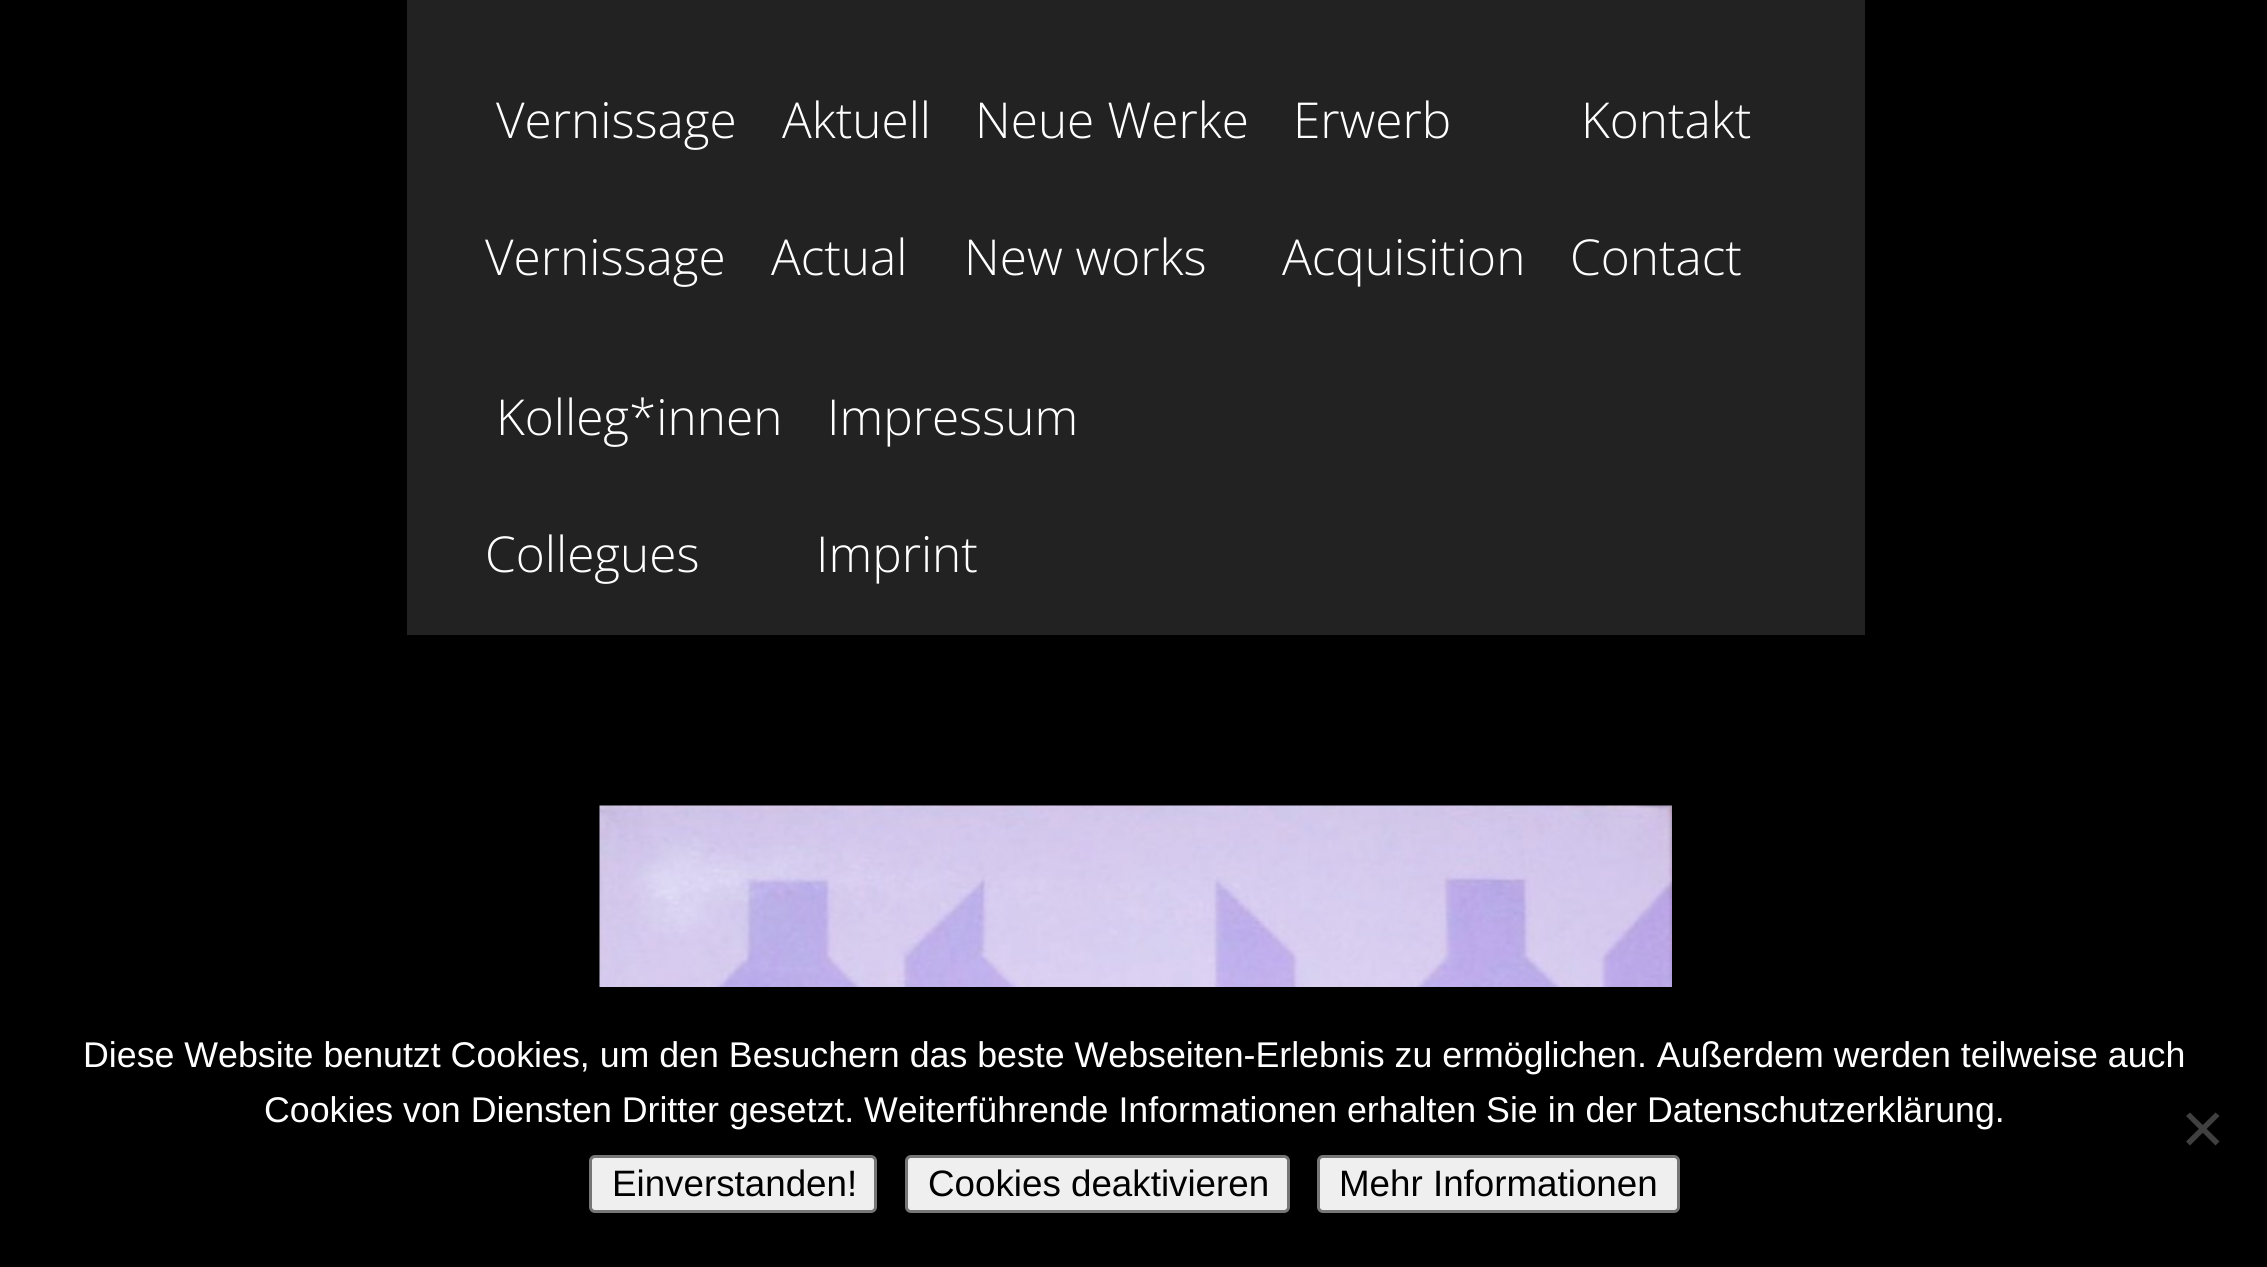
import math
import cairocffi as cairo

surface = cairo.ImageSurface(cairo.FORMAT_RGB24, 2267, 1267)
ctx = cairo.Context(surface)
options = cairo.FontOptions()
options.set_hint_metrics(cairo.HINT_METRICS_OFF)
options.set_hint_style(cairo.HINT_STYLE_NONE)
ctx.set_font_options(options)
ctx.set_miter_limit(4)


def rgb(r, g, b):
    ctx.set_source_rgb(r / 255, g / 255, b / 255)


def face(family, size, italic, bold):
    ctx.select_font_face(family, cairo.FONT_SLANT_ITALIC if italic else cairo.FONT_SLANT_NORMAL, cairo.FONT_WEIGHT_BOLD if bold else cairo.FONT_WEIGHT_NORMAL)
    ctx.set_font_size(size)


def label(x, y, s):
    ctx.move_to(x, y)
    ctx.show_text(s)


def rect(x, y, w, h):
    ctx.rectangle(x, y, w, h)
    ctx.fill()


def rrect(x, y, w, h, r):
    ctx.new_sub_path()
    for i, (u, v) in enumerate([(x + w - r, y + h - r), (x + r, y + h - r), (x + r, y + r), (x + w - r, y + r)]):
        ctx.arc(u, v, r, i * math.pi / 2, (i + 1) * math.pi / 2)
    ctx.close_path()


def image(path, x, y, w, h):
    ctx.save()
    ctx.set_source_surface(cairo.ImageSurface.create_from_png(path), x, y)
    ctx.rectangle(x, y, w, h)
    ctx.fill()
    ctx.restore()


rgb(0, 0, 0)
ctx.paint()
rgb(34, 34, 34)
rect(407, 0, 1458, 635)
face('Open Sans Light', 49.5, 0, 0)
rgb(255, 255, 255)
label(496, 138, 'Vernissage')
label(485, 275, 'Vernissage')
label(782, 138, 'Aktuell')
label(771, 275, 'Actual')
label(975, 138, 'Neue Werke')
label(964, 275, 'New works')
label(1293, 138, 'Erwerb')
label(1282, 275, 'Acquisition')
label(1581, 138, 'Kontakt')
label(1570, 275, 'Contact')
label(496, 435, 'Kolleg*innen')
label(485, 572, 'Collegues')
label(827, 435, 'Impressum')
label(816, 572, 'Imprint')
image('image0.png', 599, 805, 1073, 182)
face('Liberation Sans', 35.75, 0, 0)
label(83, 1067, 'Diese Website benutzt Cookies, um den Besuchern das beste Webseiten-Erlebnis zu ermöglichen. Außerdem werden teilweise auch')
label(264, 1122, 'Cookies von Diensten Dritter gesetzt. Weiterführende Informationen erhalten Sie in der Datenschutzerklärung.')
rgb(64, 64, 64)
ctx.new_path()
ctx.move_to(2215.5, 1112.5)
ctx.line_to(2219.5, 1116)
ctx.line_to(2190, 1145.5)
ctx.line_to(2186, 1141.5)
ctx.close_path()
ctx.fill()
ctx.new_path()
ctx.move_to(2186, 1116)
ctx.line_to(2190, 1112.5)
ctx.line_to(2219.5, 1141.5)
ctx.line_to(2215.5, 1145.5)
ctx.close_path()
ctx.fill()
rgb(239, 239, 239)
rrect(590.5, 1156.5, 285, 55, 4.5)
ctx.fill_preserve()
rgb(118, 118, 118)
ctx.set_line_width(3)
ctx.stroke()
face('Liberation Sans', 36.75, 0, 0)
rgb(0, 0, 0)
label(612, 1196, 'Einverstanden!')
rgb(239, 239, 239)
rrect(906.5, 1156.5, 382, 55, 4.5)
ctx.fill_preserve()
rgb(118, 118, 118)
ctx.stroke()
rgb(0, 0, 0)
label(928, 1196, 'Cookies deaktivieren')
rgb(239, 239, 239)
rrect(1318.5, 1156.5, 360, 55, 4.5)
ctx.fill_preserve()
rgb(118, 118, 118)
ctx.stroke()
rgb(0, 0, 0)
label(1339, 1196, 'Mehr Informationen')
surface.write_to_png('render.png')
